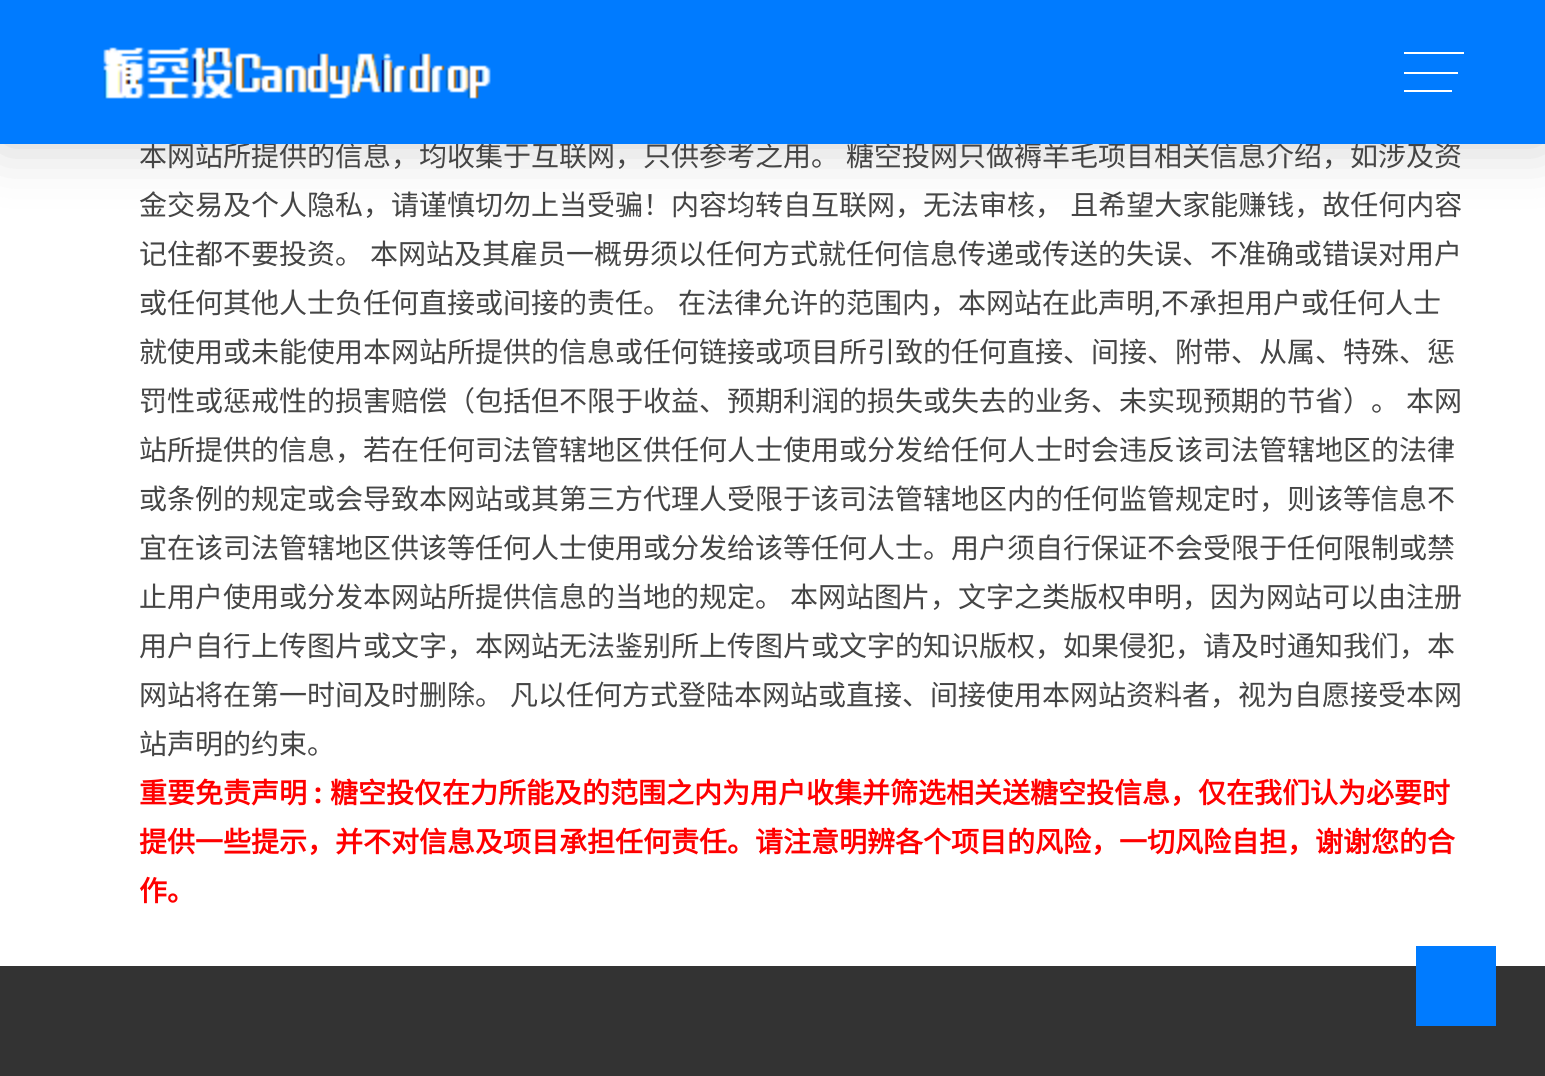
import math
import cairocffi as cairo

surface = cairo.ImageSurface(cairo.FORMAT_RGB24, 1545, 1076)
ctx = cairo.Context(surface)
options = cairo.FontOptions()
options.set_hint_metrics(cairo.HINT_METRICS_OFF)
options.set_hint_style(cairo.HINT_STYLE_NONE)
ctx.set_font_options(options)
ctx.set_miter_limit(4)


def rgb(r, g, b):
    ctx.set_source_rgb(r / 255, g / 255, b / 255)


def face(family, size, italic, bold):
    ctx.select_font_face(family, cairo.FONT_SLANT_ITALIC if italic else cairo.FONT_SLANT_NORMAL, cairo.FONT_WEIGHT_BOLD if bold else cairo.FONT_WEIGHT_NORMAL)
    ctx.set_font_size(size)


def label(x, y, s):
    ctx.move_to(x, y)
    ctx.show_text(s)


def tracked(x, y, s, letter, word):
    ctx.move_to(x, y)
    for ch in s:
        ctx.show_text(ch)
        ctx.rel_move_to(letter + word * (ch == ' '), 0)


def rect(x, y, w, h):
    ctx.rectangle(x, y, w, h)
    ctx.fill()


def rrect(x, y, w, h, r):
    ctx.new_sub_path()
    for i, (u, v) in enumerate([(x + w - r, y + h - r), (x + r, y + h - r), (x + r, y + r), (x + w - r, y + r)]):
        ctx.arc(u, v, r, i * math.pi / 2, (i + 1) * math.pi / 2)
    ctx.close_path()


def soft_shadow(x, y, w, h, r, blur, alpha):
    ctx.push_group_with_content(cairo.CONTENT_ALPHA)
    ctx.set_operator(cairo.OPERATOR_SOURCE)
    for i in range(15, -16, -2):
        e = blur * i / 6
        if min(w, h) + 2 * e > 0:
            ctx.set_source_rgba(0, 0, 0, alpha * math.erfc((i - 1) / 8.5) / 2)
            rrect(x - e, y - e, w + 2 * e, h + 2 * e, max(0, min(r + e + blur * .6, min(w, h) / 2 + e)))
            ctx.fill()
    ctx.mask(ctx.pop_group())


def image(path, x, y, w, h):
    ctx.save()
    ctx.set_source_surface(cairo.ImageSurface.create_from_png(path), x, y)
    ctx.rectangle(x, y, w, h)
    ctx.fill()
    ctx.restore()


rgb(255, 255, 255)
ctx.paint()
rgb(0, 0, 0)
soft_shadow(0, 0, 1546, 144, 0, 30, 0.2)
face('Noto Sans CJK SC', 28, 0, 0)
rgb(69, 69, 69)
label(139, 166, '本网站所提供的信息，均收集于互联网，只供参考之用。')
label(846, 166, '糖空投网只做褥羊毛项目相关信息介绍，如涉及资')
rgb(0, 123, 255)
rect(0, 0, 1545, 144)
image('image0.png', 103, 47, 388, 52)
rgb(255, 255, 255)
rect(1404, 72, 54, 2)
rect(1404, 52, 60, 2)
rect(1404, 90, 48, 2)
rgb(69, 69, 69)
tracked(139, 215, '金交易及个人隐私，请谨慎切勿上当受骗！内容均转自互联网，无法审核， 且希望大家能赚钱，故任何内容', 0, 1)
label(139, 264, '记住都不要投资。')
label(370, 264, '本网站及其雇员一概毋须以任何方式就任何信息传递或传送的失误、不准确或错误对用户')
label(139, 313, '或任何其他人士负任何直接或间接的责任。')
label(678, 313, '在法律允许的范围内，本网站在此声明')
face('Open Sans', 28, 0, 0)
label(1154, 313, ',')
face('Noto Sans CJK SC', 28, 0, 0)
label(1161, 313, '不承担用户或任何人士')
label(139, 362, '就使用或未能使用本网站所提供的信息或任何链接或项目所引致的任何直接、间接、附带、从属、特殊、惩')
label(139, 411, '罚性或惩戒性的损害赔偿（包括但不限于收益、预期利润的损失或失去的业务、未实现预期的节省）。')
label(1406, 411, '本网')
label(139, 460, '站所提供的信息，若在任何司法管辖地区供任何人士使用或分发给任何人士时会违反该司法管辖地区的法律')
label(139, 509, '或条例的规定或会导致本网站或其第三方代理人受限于该司法管辖地区内的任何监管规定时，则该等信息不')
label(139, 558, '宜在该司法管辖地区供该等任何人士使用或分发给该等任何人士。用户须自行保证不会受限于任何限制或禁')
label(139, 607, '止用户使用或分发本网站所提供信息的当地的规定。')
label(790, 607, '本网站图片，文字之类版权申明，因为网站可以由注册')
label(139, 656, '用户自行上传图片或文字，本网站无法鉴别所上传图片或文字的知识版权，如果侵犯，请及时通知我们，本')
label(139, 705, '网站将在第一时间及时删除。')
label(510, 705, '凡以任何方式登陆本网站或直接、间接使用本网站资料者，视为自愿接受本网')
label(139, 754, '站声明的约束。')
face('Noto Sans CJK SC', 28, 0, 1)
rgb(255, 0, 0)
label(139, 803, '重要免责声明')
face('Open Sans', 28, 0, 1)
label(314, 803, ':')
face('Noto Sans CJK SC', 28, 0, 1)
label(330, 803, '糖空投仅在力所能及的范围之内为用户收集并筛选相关送糖空投信息，仅在我们认为必要时')
label(139, 852, '提供一些提示，并不对信息及项目承担任何责任。请注意明辨各个项目的风险，一切风险自担，谢谢您的合')
label(139, 901, '作。')
rgb(51, 51, 51)
rect(0, 966, 1545, 110)
rgb(0, 123, 255)
rect(1416, 946, 80, 80)
surface.write_to_png('render.png')
